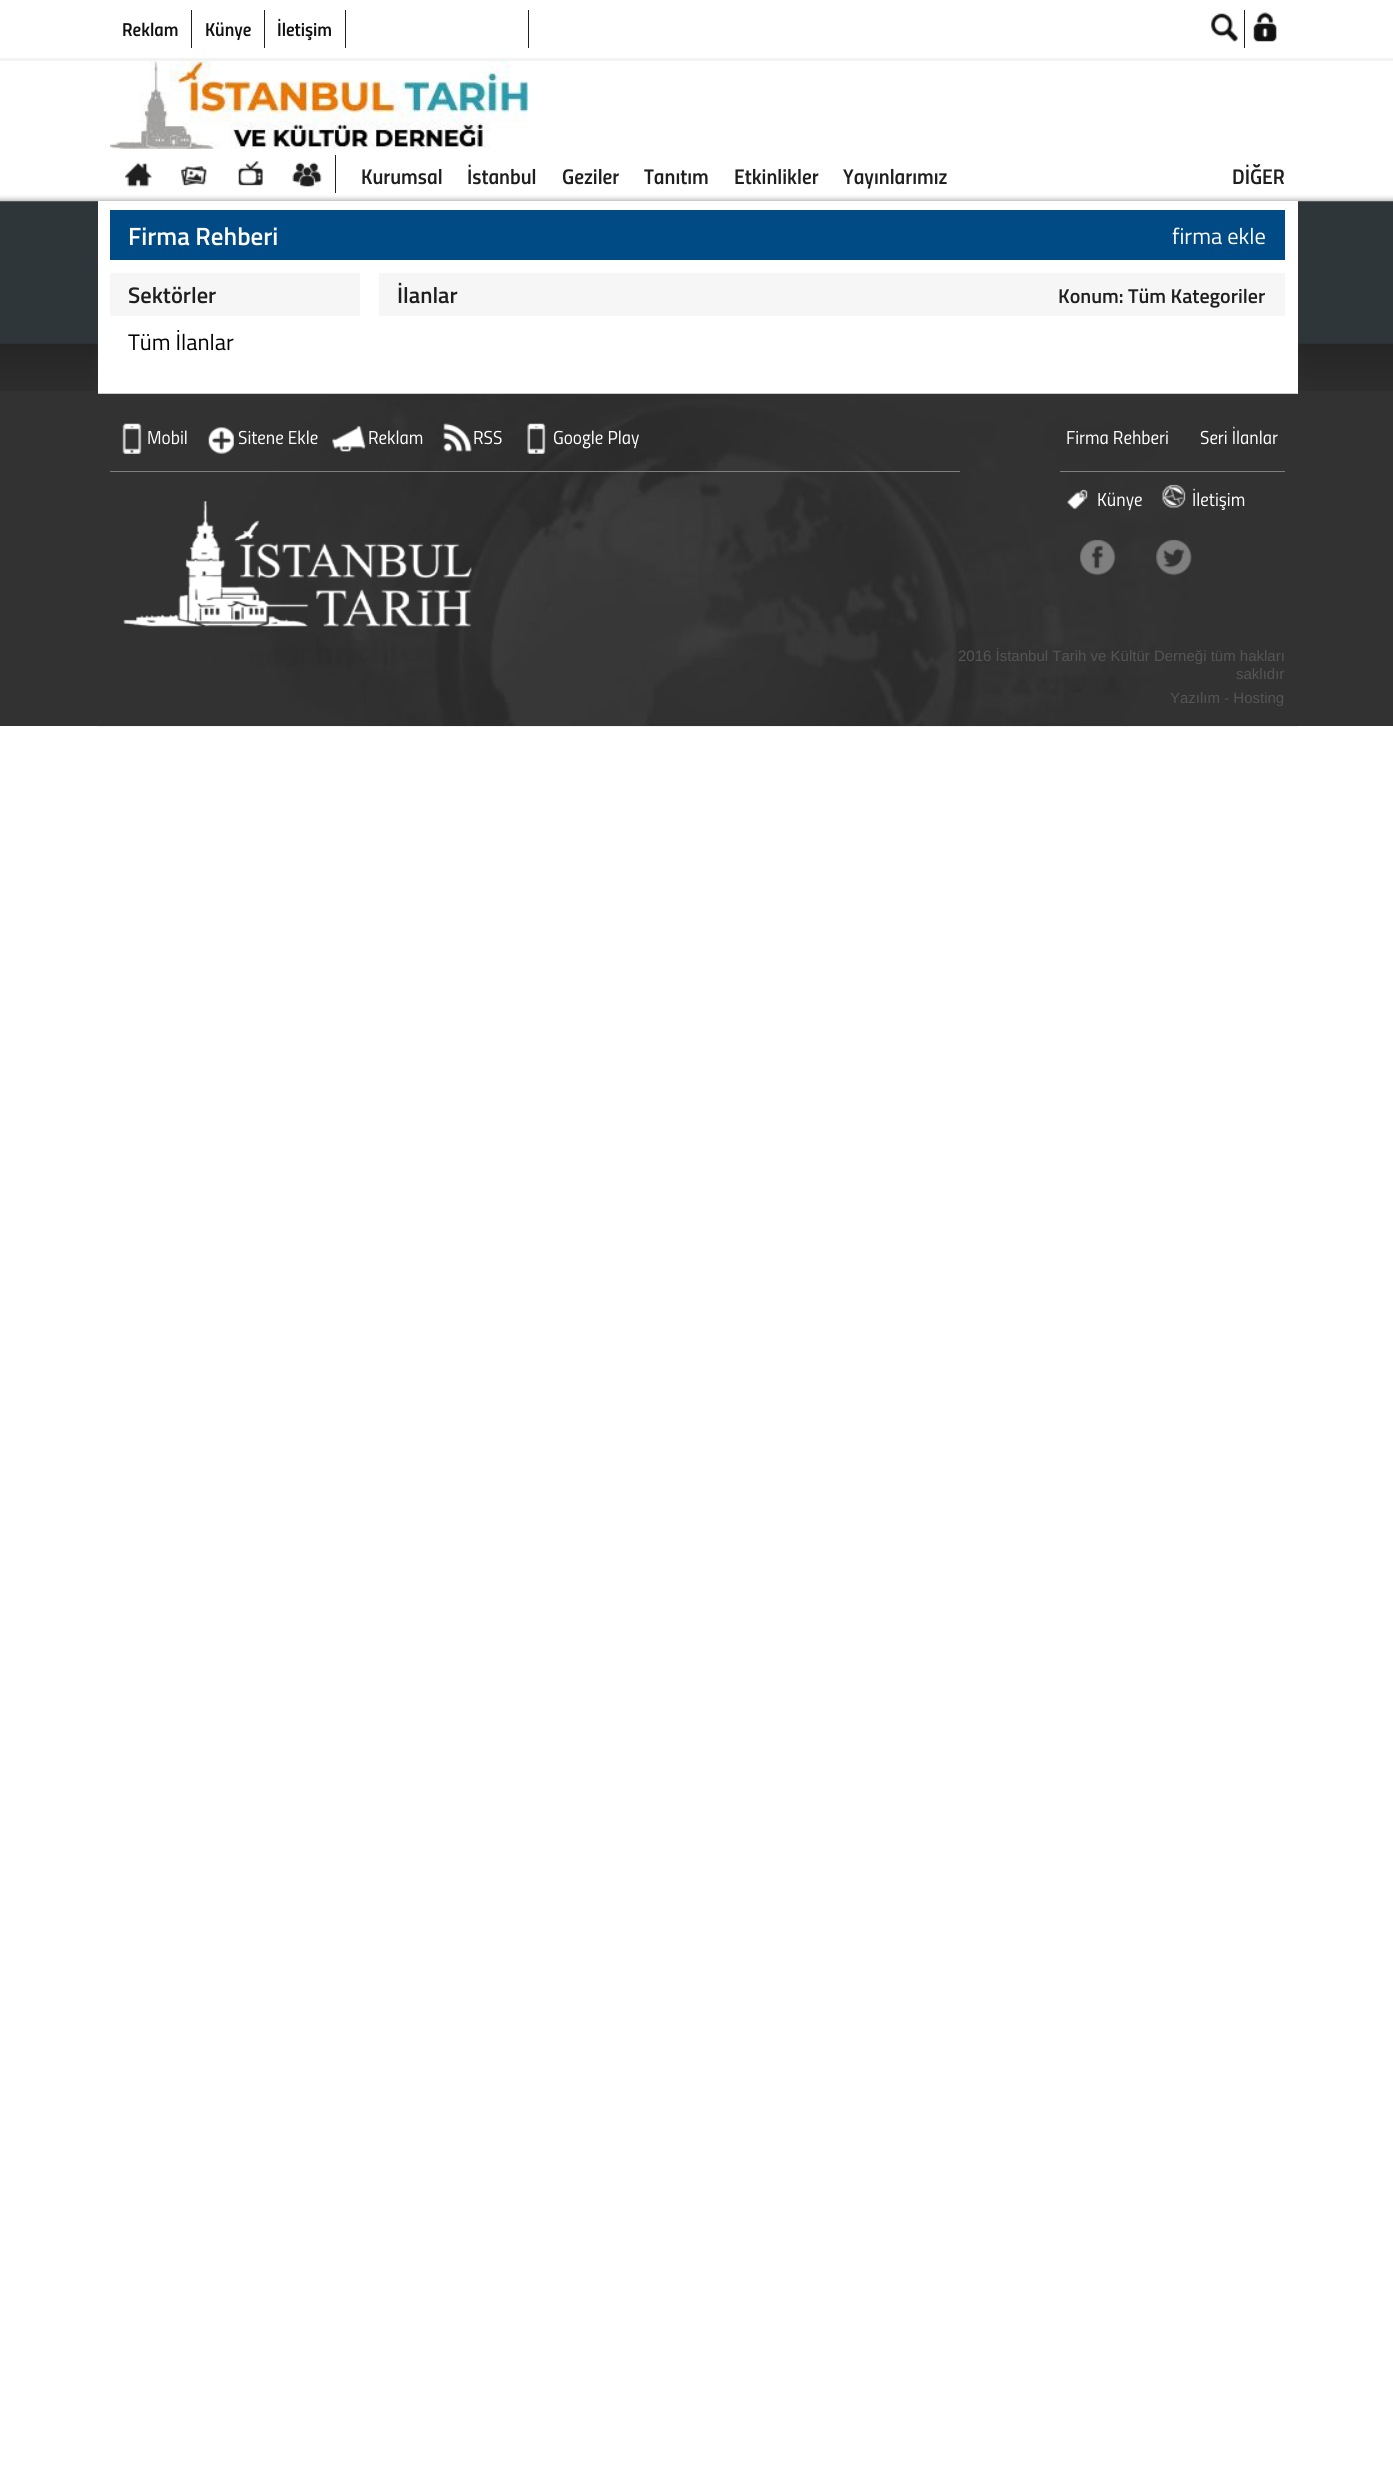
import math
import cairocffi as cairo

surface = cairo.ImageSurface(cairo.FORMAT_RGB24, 1393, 2470)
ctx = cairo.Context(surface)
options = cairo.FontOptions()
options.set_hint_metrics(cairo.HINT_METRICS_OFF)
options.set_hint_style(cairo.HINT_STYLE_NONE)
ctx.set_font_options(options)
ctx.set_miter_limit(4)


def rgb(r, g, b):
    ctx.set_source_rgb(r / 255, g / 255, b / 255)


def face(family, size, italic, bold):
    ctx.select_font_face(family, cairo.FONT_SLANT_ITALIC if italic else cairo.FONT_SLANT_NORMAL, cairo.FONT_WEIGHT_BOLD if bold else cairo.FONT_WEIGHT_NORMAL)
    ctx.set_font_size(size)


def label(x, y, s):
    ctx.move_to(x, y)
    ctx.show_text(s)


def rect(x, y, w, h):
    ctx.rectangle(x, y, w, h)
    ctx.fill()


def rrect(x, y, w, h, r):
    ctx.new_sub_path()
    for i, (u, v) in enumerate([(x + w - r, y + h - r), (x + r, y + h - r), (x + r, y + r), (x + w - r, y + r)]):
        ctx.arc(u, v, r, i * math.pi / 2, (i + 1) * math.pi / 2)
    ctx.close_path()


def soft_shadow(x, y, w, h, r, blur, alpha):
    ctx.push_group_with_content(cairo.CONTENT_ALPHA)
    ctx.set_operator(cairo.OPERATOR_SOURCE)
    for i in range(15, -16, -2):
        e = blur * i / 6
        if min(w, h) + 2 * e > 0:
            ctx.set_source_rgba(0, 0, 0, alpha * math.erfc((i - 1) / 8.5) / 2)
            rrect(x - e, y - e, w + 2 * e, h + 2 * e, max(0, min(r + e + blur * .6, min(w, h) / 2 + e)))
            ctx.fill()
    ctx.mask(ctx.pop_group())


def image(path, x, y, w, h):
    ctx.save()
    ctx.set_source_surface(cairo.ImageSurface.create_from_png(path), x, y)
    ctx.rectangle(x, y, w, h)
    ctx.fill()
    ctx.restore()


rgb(255, 255, 255)
ctx.paint()
rgb(46, 54, 58)
rect(0, 201, 1393, 143)
rgb(243, 243, 243)
rect(0, 58, 1393, 3)
face('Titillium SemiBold', 18.75, 1, 0)
rgb(17, 17, 17)
label(122, 36, 'Reklam')
rgb(31, 31, 31)
rect(191, 10, 1, 38)
rgb(17, 17, 17)
label(205, 36, 'Künye')
rgb(31, 31, 31)
rect(264, 10, 1, 38)
rgb(17, 17, 17)
label(277, 36, 'İletişim')
rgb(31, 31, 31)
rect(345, 10, 1, 38)
rect(528, 10, 1, 38)
image('image0.png', 1211, 13, 27, 29)
rect(1244, 10, 1, 38)
image('image1.png', 1253, 12, 24, 30)
image('image2.png', 110, 61, 418, 88)
image('image3.png', 0, 195, 1393, 7)
image('image4.png', 124, 162, 28, 25)
image('image5.png', 181, 166, 26, 20)
image('image6.png', 238, 161, 25, 25)
image('image7.png', 292, 162, 30, 25)
rect(335, 155, 1, 38)
face('Titillium SemiBold', 21.25, 1, 0)
label(361, 184, 'Kurumsal')
label(467, 184, 'İstanbul')
label(562, 184, 'Geziler')
label(644, 184, 'Tanıtım')
label(734, 184, 'Etkinlikler')
label(843, 184, 'Yayınlarımız')
label(1232, 184, 'DİĞER')
rgb(50, 50, 50)
rect(0, 391, 1393, 335)
image('image8.png', 0, 343, 1393, 48)
ctx.save()
ctx.rectangle(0, 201, 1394, 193)
ctx.clip()
rgb(50, 50, 50)
soft_shadow(98, 201, 1200, 193, 0, 6, 0.5)
ctx.restore()
rgb(255, 255, 255)
rect(98, 201, 1200, 193)
rgb(0, 74, 133)
rect(110, 210, 1175, 50)
face('Titillium SemiBold', 25, 0, 0)
rgb(255, 255, 255)
label(128, 245, 'Firma Rehberi')
face('Titillium', 22.5, 0, 0)
label(1172, 244, 'firma ekle')
rgb(246, 246, 246)
rect(110, 273, 250, 43)
face('Titillium SemiBold', 22.5, 0, 0)
rgb(31, 31, 31)
label(128, 303, 'Sektörler')
face('Titillium', 22.5, 0, 0)
rgb(0, 0, 0)
label(128, 350, 'Tüm İlanlar')
rgb(246, 246, 246)
rect(379, 273, 906, 43)
face('Titillium SemiBold', 22.5, 0, 0)
rgb(31, 31, 31)
label(397, 303, 'İlanlar')
face('Titillium SemiBold', 20, 0, 0)
label(1058, 303, 'Konum: Tüm Kategoriler')
image('image9.png', 97, 393, 1201, 334)
rgb(127, 127, 127)
rect(110, 471, 850, 1)
image('image10.png', 122, 423, 20, 31)
face('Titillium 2', 18.75, 0, 0)
rgb(255, 255, 255)
label(147, 444, 'Mobil')
image('image11.png', 208, 427, 26, 27)
label(238, 444, 'Sitene Ekle')
image('image12.png', 332, 426, 34, 26)
label(368, 444, 'Reklam')
image('image13.png', 443, 423, 29, 29)
label(473, 444, 'RSS')
image('image14.png', 527, 423, 19, 31)
label(553, 444, 'Google Play')
rgb(127, 127, 127)
rect(1060, 471, 225, 1)
rgb(255, 255, 255)
label(1066, 444, 'Firma Rehberi')
label(1200, 444, 'Seri İlanlar')
image('image15.png', 1067, 489, 21, 20)
label(1097, 506, 'Künye')
image('image16.png', 1162, 484, 24, 24)
label(1192, 506, 'İletişim')
image('image17.png', 123, 501, 349, 126)
image('image18.png', 1080, 539, 36, 37)
image('image19.png', 1156, 539, 36, 37)
face('Liberation Sans', 15, 0, 0)
rgb(84, 84, 84)
label(958, 661, '2016 İstanbul Tarih ve Kültür Derneği tüm hakları')
label(1236, 679, 'saklıdır')
label(1170, 703, 'Yazılım - Hosting')
surface.write_to_png('render.png')
